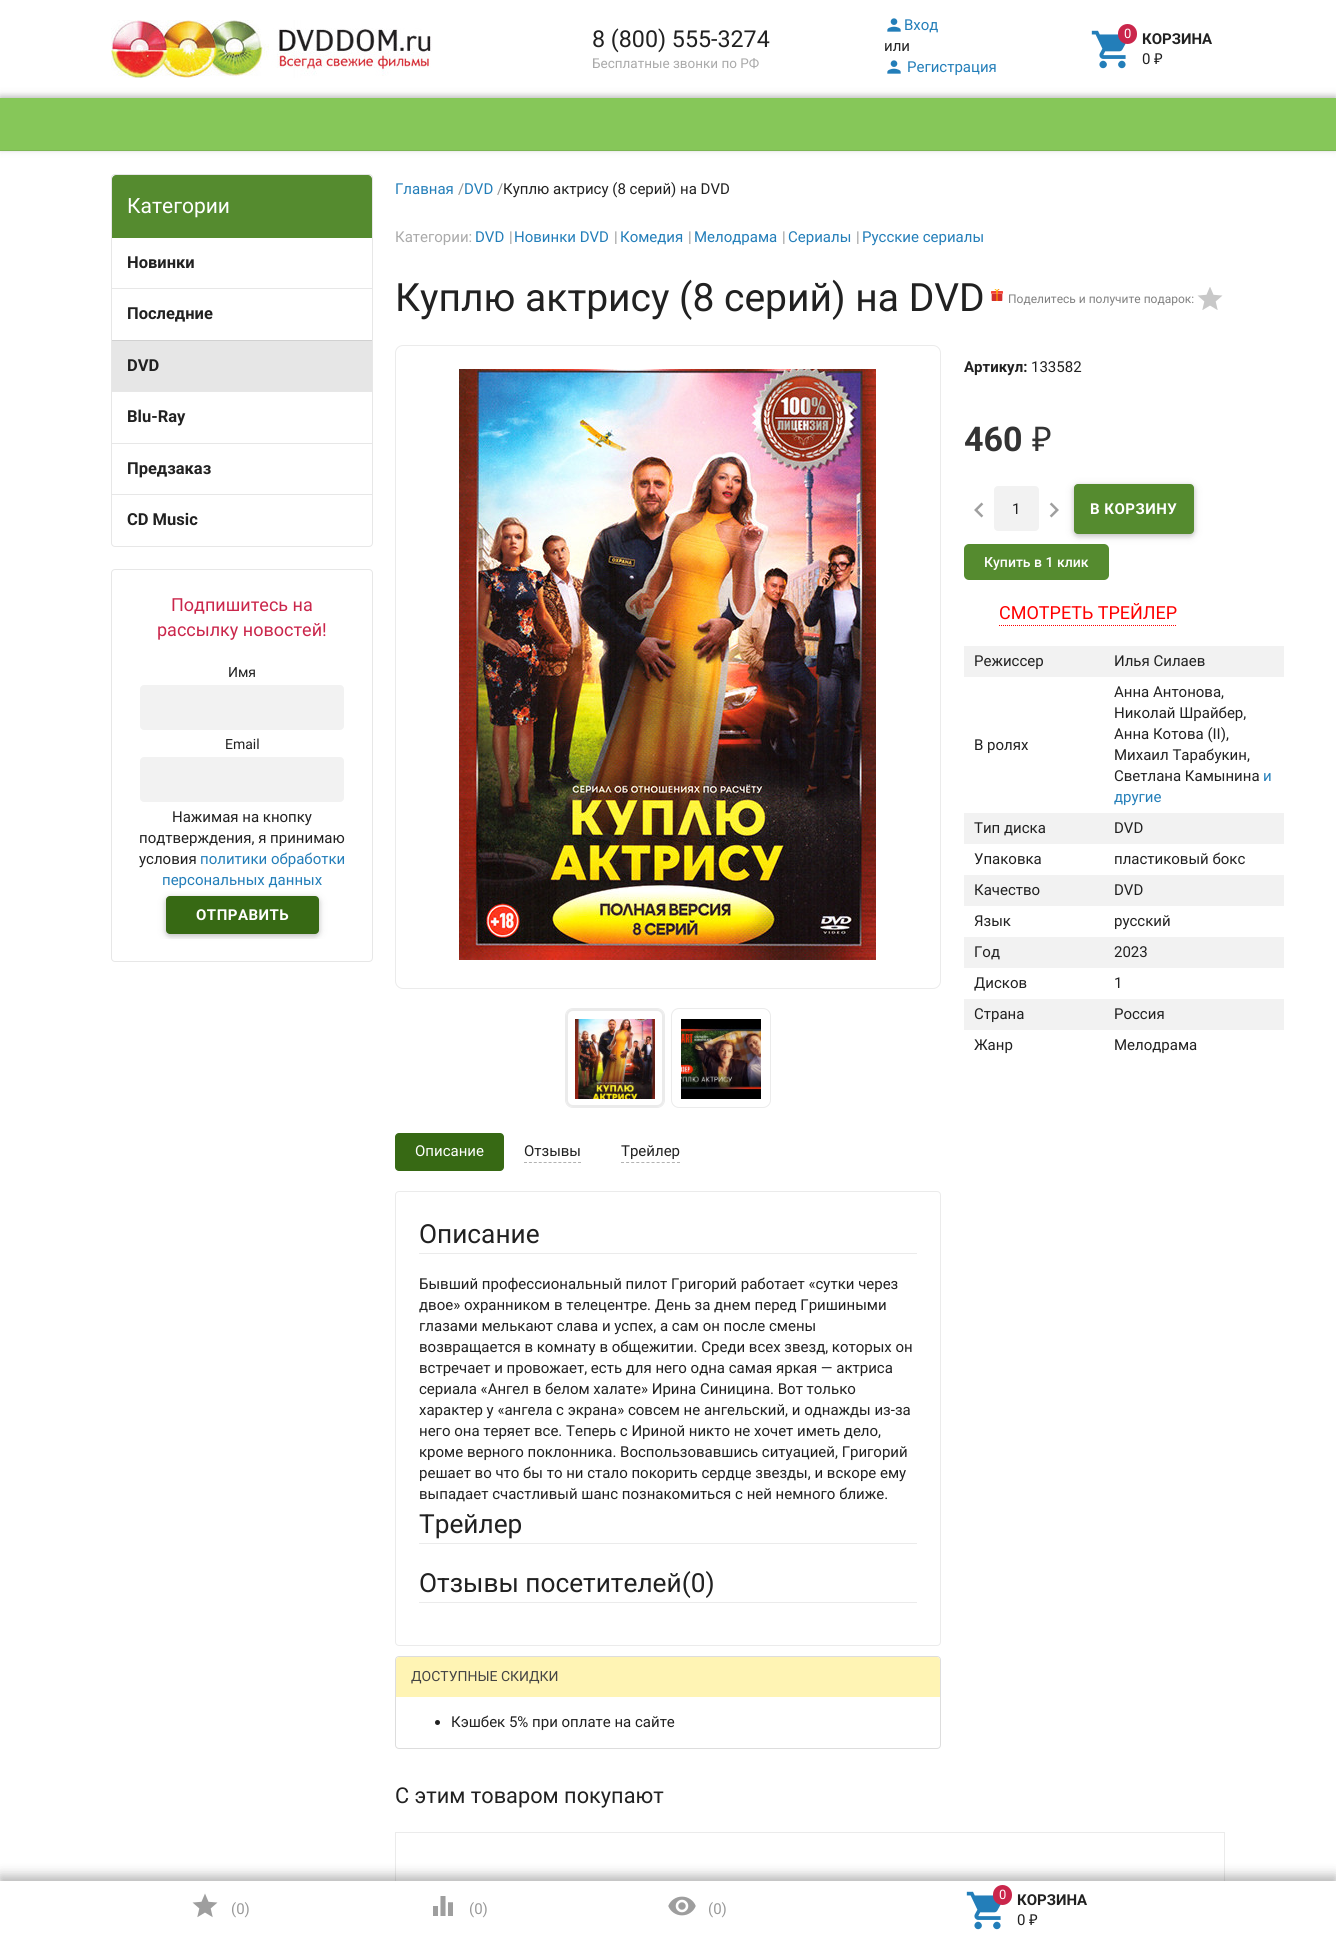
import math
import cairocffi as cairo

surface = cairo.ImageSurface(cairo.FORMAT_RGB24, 1336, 1937)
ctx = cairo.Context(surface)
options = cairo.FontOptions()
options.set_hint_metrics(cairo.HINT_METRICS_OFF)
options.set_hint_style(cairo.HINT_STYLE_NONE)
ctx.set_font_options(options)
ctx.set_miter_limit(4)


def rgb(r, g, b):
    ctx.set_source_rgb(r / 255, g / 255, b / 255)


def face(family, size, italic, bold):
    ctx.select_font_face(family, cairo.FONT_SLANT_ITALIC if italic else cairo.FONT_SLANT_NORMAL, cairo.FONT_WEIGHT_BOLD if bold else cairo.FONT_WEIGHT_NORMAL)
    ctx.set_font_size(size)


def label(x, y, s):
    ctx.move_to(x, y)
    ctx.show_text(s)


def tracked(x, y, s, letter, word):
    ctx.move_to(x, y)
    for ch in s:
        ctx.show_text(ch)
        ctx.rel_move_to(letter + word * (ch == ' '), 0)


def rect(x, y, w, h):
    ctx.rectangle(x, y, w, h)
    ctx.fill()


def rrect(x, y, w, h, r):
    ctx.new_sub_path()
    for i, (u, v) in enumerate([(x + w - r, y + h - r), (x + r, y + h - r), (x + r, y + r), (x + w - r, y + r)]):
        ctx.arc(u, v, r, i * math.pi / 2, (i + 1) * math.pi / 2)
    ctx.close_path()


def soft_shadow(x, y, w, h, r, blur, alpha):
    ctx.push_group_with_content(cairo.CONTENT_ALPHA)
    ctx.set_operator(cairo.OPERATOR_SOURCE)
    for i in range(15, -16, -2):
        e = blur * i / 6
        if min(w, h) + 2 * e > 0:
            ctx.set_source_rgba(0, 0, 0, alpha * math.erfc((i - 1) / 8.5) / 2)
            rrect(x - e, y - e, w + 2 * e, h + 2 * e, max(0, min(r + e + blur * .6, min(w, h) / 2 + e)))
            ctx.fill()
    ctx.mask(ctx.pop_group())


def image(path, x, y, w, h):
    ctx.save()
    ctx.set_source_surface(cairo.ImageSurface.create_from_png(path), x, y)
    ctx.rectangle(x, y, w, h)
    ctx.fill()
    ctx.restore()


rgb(255, 255, 255)
ctx.paint()
image('image0.png', 111, 20, 321, 58)
face('Roboto', 23.25, 0, 0)
rgb(33, 33, 33)
label(592, 47, '8 (800) 555-3274')
face('Roboto', 13.5, 0, 0)
rgb(170, 170, 170)
label(592, 68, 'Бесплатные звонки по РФ')
image('image1.png', 887, 18, 14, 14)
face('Roboto', 15, 0, 0)
rgb(35, 126, 185)
label(904, 30, 'Вход')
rgb(33, 33, 33)
label(884, 51, 'или')
image('image1.png', 887, 60, 14, 14)
rgb(35, 126, 185)
label(907, 72, 'Регистрация')
image('image2.png', 1091, 30, 35, 39)
rgb(202, 38, 75)
rrect(1118, 24, 19, 20, 9.5)
ctx.fill()
face('Roboto', 13, 0, 0)
rgb(255, 255, 255)
label(1124, 38, '0')
face('Roboto', 15, 0, 1)
rgb(33, 33, 33)
label(1142, 44, 'КОРЗИНА')
face('Roboto', 15, 0, 0)
label(1142, 64, '0')
face('Noto Sans', 15, 0, 0)
label(1154, 64, '₽')
rgb(0, 0, 0)
soft_shadow(0, 96, 1336, 53, 0, 5, 0.12)
soft_shadow(0, 96, 1336, 53, 0, 2.5, 0.16)
rgb(134, 199, 89)
rect(0, 98, 1336, 52)
rgb(124, 181, 84)
rect(0, 150, 1336, 1)
rrect(111.5, 174.5, 261, 372, 3.5)
rgb(231, 231, 231)
ctx.set_line_width(1)
ctx.stroke()
rgb(85, 139, 47)
ctx.new_path()
ctx.move_to(116, 175)
ctx.line_to(368, 175)
ctx.curve_to(370, 175, 372, 177, 372, 179)
ctx.line_to(372, 238)
ctx.line_to(112, 238)
ctx.line_to(112, 179)
ctx.curve_to(112, 177, 114, 175, 116, 175)
ctx.close_path()
ctx.fill()
face('Roboto', 21, 0, 0)
rgb(255, 255, 255)
label(127, 213, 'Категории')
face('Roboto', 16.5, 0, 1)
rgb(33, 33, 33)
label(127, 268, 'Новинки')
rgb(231, 231, 231)
rect(112, 288, 260, 1)
rgb(33, 33, 33)
label(127, 319, 'Последние')
rgb(230, 230, 230)
rect(112, 341, 260, 50)
rgb(209, 209, 209)
rect(112, 340, 260, 1)
rgb(33, 33, 33)
label(127, 371, 'DVD')
rgb(231, 231, 231)
rect(112, 391, 260, 1)
rgb(33, 33, 33)
label(127, 422, 'Blu-Ray')
rgb(231, 231, 231)
rect(112, 443, 260, 1)
rgb(33, 33, 33)
label(127, 474, 'Предзаказ')
rgb(231, 231, 231)
rect(112, 494, 260, 1)
rgb(33, 33, 33)
label(127, 525, 'CD Music')
rrect(111.5, 569.5, 261, 392, 3.5)
rgb(231, 231, 231)
ctx.stroke()
face('Roboto', 18, 0, 0)
rgb(202, 38, 75)
label(171, 611, 'Подпишитесь на')
label(157, 636, 'рассылку новостей!')
face('Roboto', 14, 0, 0)
rgb(33, 33, 33)
label(228, 677, 'Имя')
rgb(242, 242, 242)
rrect(140, 685, 204, 45, 4)
ctx.fill()
rgb(33, 33, 33)
label(225, 749, 'Email')
rgb(242, 242, 242)
rrect(140, 757, 204, 45, 4)
ctx.fill()
face('Roboto', 15, 0, 0)
rgb(33, 33, 33)
label(172, 822, 'Нажимая на кнопку')
label(139, 843, 'подтверждения, я принимаю')
label(139, 864, 'условия')
rgb(35, 126, 185)
label(200, 864, 'политики обработки')
label(162, 885, 'персональных данных')
ctx.save()
ctx.rectangle(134, 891, 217, 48)
ctx.clip()
rgb(0, 0, 0)
soft_shadow(166, 898, 153, 38, 4, 5, 0.12)
ctx.restore()
rgb(0, 0, 0)
soft_shadow(166, 898, 153, 38, 4, 2.5, 0.16)
rgb(55, 105, 20)
rrect(166, 896, 153, 38, 4)
ctx.fill()
face('Roboto', 15, 0, 1)
rgb(255, 255, 255)
tracked(196, 920, 'ОТПРАВИТЬ', 0.5, 0)
face('Roboto', 15, 0, 0)
rgb(35, 126, 185)
label(395, 194, 'Главная')
rgb(145, 145, 145)
label(458, 194, '/')
rgb(35, 126, 185)
label(464, 194, 'DVD')
rgb(145, 145, 145)
label(497, 194, '/')
rgb(33, 33, 33)
label(503, 194, 'Куплю актрису (8 серий) на DVD')
rgb(170, 170, 170)
label(395, 242, 'Категории:')
rgb(35, 126, 185)
label(475, 242, 'DVD')
rgb(153, 153, 153)
label(509, 242, '|')
rgb(35, 126, 185)
label(514, 242, 'Новинки DVD')
rgb(153, 153, 153)
label(614, 242, '|')
rgb(35, 126, 185)
label(620, 242, 'Комедия')
rgb(153, 153, 153)
label(688, 242, '|')
rgb(35, 126, 185)
label(694, 242, 'Мелодрама')
rgb(153, 153, 153)
label(782, 242, '|')
rgb(35, 126, 185)
label(788, 242, 'Сериалы')
rgb(153, 153, 153)
label(856, 242, '|')
rgb(35, 126, 185)
label(862, 242, 'Русские сериалы')
face('Roboto', 39, 0, 0)
rgb(33, 33, 33)
label(395, 311, 'Куплю актрису (8 серий) на DVD')
image('image3.png', 991, 289, 12, 12)
face('Roboto', 12, 0, 0)
rgb(128, 128, 128)
label(1008, 303, 'Поделитесь и получите подарок:')
image('image4.png', 1197, 287, 26, 23)
rrect(395.5, 345.5, 545, 643, 7.5)
rgb(235, 235, 235)
ctx.stroke()
image('image5.png', 459, 369, 417, 591)
rrect(567, 1010, 96, 96, 6)
ctx.set_line_width(2)
ctx.stroke()
rrect(565.5, 1008.5, 99, 99, 7.5)
ctx.set_line_width(1)
ctx.stroke()
image('image6.png', 575, 1019, 80, 80)
rrect(671.5, 1008.5, 99, 99, 7.5)
ctx.stroke()
image('image7.png', 681, 1019, 80, 80)
face('Roboto', 15, 0, 1)
rgb(33, 33, 33)
label(964, 372, 'Артикул:')
face('Roboto', 15, 0, 0)
label(1031, 372, '133582')
face('Roboto', 34, 0, 1)
rgb(51, 51, 51)
label(964, 451, '460')
face('Noto Sans', 34, 0, 0)
label(1032, 451, '₽')
image('image8.png', 974, 502, 10, 16)
rgb(242, 242, 242)
rrect(994, 486, 45, 45, 4)
ctx.fill()
face('Roboto', 15, 0, 0)
rgb(33, 33, 33)
label(1012, 514, '1')
image('image9.png', 1049, 502, 10, 16)
rgb(0, 0, 0)
soft_shadow(1074, 486, 120, 50, 4, 5, 0.12)
soft_shadow(1074, 486, 120, 50, 4, 2.5, 0.16)
rgb(85, 139, 47)
rrect(1074, 484, 120, 50, 4)
ctx.fill()
face('Roboto', 15, 0, 1)
rgb(255, 255, 255)
tracked(1090, 514, 'В КОРЗИНУ', 0.5, 0)
rgb(85, 139, 47)
rrect(964, 544, 145, 36, 5)
ctx.fill()
face('Roboto Medium', 14, 0, 0)
rgb(255, 255, 255)
label(984, 567, 'Купить в 1 клик')
ctx.new_path()
ctx.move_to(999, 625.5)
ctx.line_to(1177, 625.5)
rgb(255, 0, 0)
ctx.set_dash([1, 1])
ctx.stroke()
face('Roboto', 18, 0, 0)
label(999, 619, 'СМОТРЕТЬ ТРЕЙЛЕР')
rgb(242, 242, 242)
rect(964, 646, 320, 31)
face('Roboto', 15, 0, 0)
rgb(33, 33, 33)
label(974, 666, 'Режиссер')
label(1114, 666, 'Илья Силаев')
label(974, 750, 'В ролях')
label(1114, 697, 'Анна Антонова,')
label(1114, 718, 'Николай Шрайбер,')
label(1114, 739, 'Анна Котова (II),')
label(1114, 760, 'Михаил Тарабукин,')
label(1114, 781, 'Светлана Камынина')
rgb(35, 126, 185)
label(1263, 781, 'и')
label(1114, 802, 'другие')
rgb(242, 242, 242)
rect(964, 813, 320, 31)
rgb(33, 33, 33)
label(974, 833, 'Тип диска')
label(1114, 833, 'DVD')
label(974, 864, 'Упаковка')
label(1114, 864, 'пластиковый бокс')
rgb(242, 242, 242)
rect(964, 875, 320, 31)
rgb(33, 33, 33)
label(974, 895, 'Качество')
label(1114, 895, 'DVD')
label(974, 926, 'Язык')
label(1114, 926, 'русский')
rgb(242, 242, 242)
rect(964, 937, 320, 31)
rgb(33, 33, 33)
label(974, 957, 'Год')
label(1114, 957, '2023')
label(974, 988, 'Дисков')
label(1114, 988, '1')
rgb(242, 242, 242)
rect(964, 999, 320, 31)
rgb(33, 33, 33)
label(974, 1019, 'Страна')
label(1114, 1019, 'Россия')
label(974, 1050, 'Жанр')
label(1114, 1050, 'Мелодрама')
rgb(55, 105, 20)
rrect(395, 1133, 109, 38, 4)
ctx.fill()
rgb(255, 255, 255)
label(415, 1156, 'Описание')
rgb(33, 33, 33)
label(524, 1156, 'Отзывы')
ctx.new_path()
ctx.move_to(524, 1162.5)
ctx.line_to(581, 1162.5)
rgb(178, 178, 178)
ctx.set_dash([3, 1.91])
ctx.stroke()
rgb(33, 33, 33)
label(621, 1156, 'Трейлер')
ctx.new_path()
ctx.move_to(621, 1162.5)
ctx.line_to(680, 1162.5)
rgb(178, 178, 178)
ctx.set_dash([3, 2.09])
ctx.stroke()
rrect(395.5, 1191.5, 545, 454, 3.5)
rgb(235, 235, 235)
ctx.set_dash([])
ctx.stroke()
rect(419, 1253, 498, 1)
face('Roboto', 26.25, 0, 0)
rgb(33, 33, 33)
label(419, 1243, 'Описание')
face('Roboto', 15, 0, 0)
label(419, 1289, 'Бывший профессиональный пилот Григорий работает «сутки через')
label(419, 1310, 'двое» охранником в телецентре. День за днем перед Гришиными')
label(419, 1331, 'глазами мелькают слава и успех, а сам он после смены')
label(419, 1352, 'возвращается в комнату в общежитии. Среди всех звезд, которых он')
label(419, 1373, 'встречает и провожает, есть для него одна самая яркая — актриса')
label(419, 1394, 'сериала «Ангел в белом халате» Ирина Синицина. Вот только')
label(419, 1415, 'характер у «ангела с экрана» совсем не ангельский, и однажды из-за')
label(419, 1436, 'него она теряет все. Теперь с Ириной никто не хочет иметь дело,')
label(419, 1457, 'кроме верного поклонника. Воспользовавшись ситуацией, Григорий')
label(419, 1478, 'решает во что бы то ни стало покорить сердце звезды, и вскоре ему')
label(419, 1499, 'выпадает счастливый шанс познакомиться с ней немного ближе.')
rgb(235, 235, 235)
rect(419, 1543, 498, 1)
face('Roboto', 26.25, 0, 0)
rgb(33, 33, 33)
label(419, 1533, 'Трейлер')
rgb(235, 235, 235)
rect(419, 1602, 498, 1)
rgb(33, 33, 33)
label(419, 1592, 'Отзывы посетителей(0)')
rrect(395.5, 1656.5, 545, 92, 3.5)
rgb(221, 221, 221)
ctx.stroke()
rgb(255, 244, 180)
ctx.new_path()
ctx.move_to(399, 1657)
ctx.line_to(937, 1657)
ctx.curve_to(938.5, 1657, 940, 1658.5, 940, 1660)
ctx.line_to(940, 1697)
ctx.line_to(396, 1697)
ctx.line_to(396, 1660)
ctx.curve_to(396, 1658.5, 397.5, 1657, 399, 1657)
ctx.close_path()
ctx.fill()
face('Roboto', 14, 0, 0)
rgb(68, 68, 68)
label(411, 1681, 'ДОСТУПНЫЕ СКИДКИ')
rgb(33, 33, 33)
ctx.new_path()
ctx.arc(437.5, 1722.5, 2.5, 0, 2 * math.pi)
ctx.fill()
face('Roboto', 15, 0, 0)
label(451, 1727, 'Кэшбек 5% при оплате на сайте')
face('Roboto', 21.75, 0, 0)
label(395, 1803, 'С этим товаром покупают')
ctx.rectangle(395.5, 1832.5, 829, 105)
rgb(235, 235, 235)
ctx.stroke()
rgb(0, 0, 0)
soft_shadow(0, 1877, 1336, 56, 0, 7.5, 0.15)
soft_shadow(0, 1876, 1336, 56, 0, 5.5, 0.18)
rgb(255, 255, 255)
rect(0, 1881, 1336, 56)
image('image10.png', 192, 1893, 26, 25)
face('Roboto', 15, 0, 0)
rgb(153, 153, 153)
label(231, 1914, '(0)')
image('image11.png', 433, 1896, 20, 20)
label(469, 1914, '(0)')
image('image12.png', 668, 1896, 28, 20)
label(708, 1914, '(0)')
image('image2.png', 966, 1891, 35, 39)
rgb(202, 38, 75)
rrect(993, 1885, 19, 20, 9.5)
ctx.fill()
face('Roboto', 13, 0, 0)
rgb(255, 255, 255)
label(999, 1899, '0')
face('Roboto', 15, 0, 1)
rgb(33, 33, 33)
label(1017, 1905, 'КОРЗИНА')
face('Roboto', 15, 0, 0)
label(1017, 1925, '0')
face('Noto Sans', 15, 0, 0)
label(1029, 1925, '₽')
surface.write_to_png('render.png')
